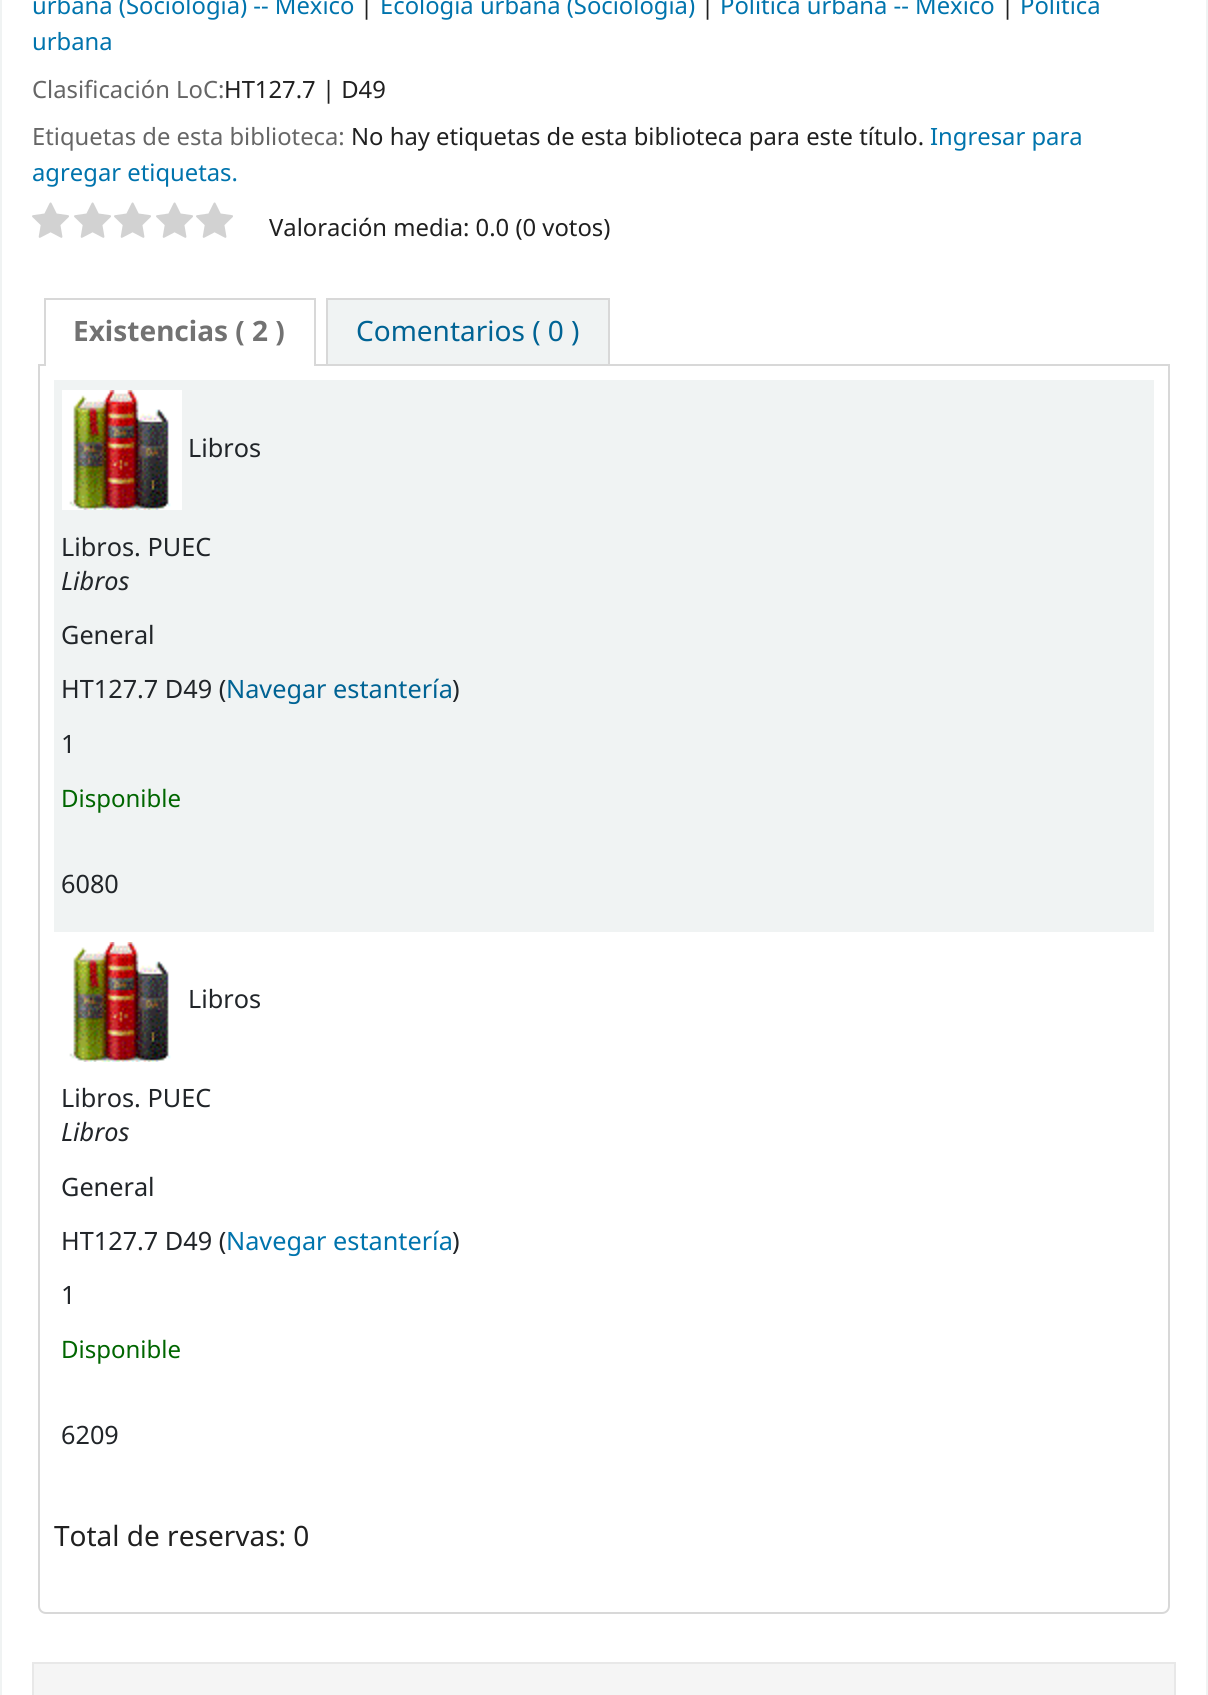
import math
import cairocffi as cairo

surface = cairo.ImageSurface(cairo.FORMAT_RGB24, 1208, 1695)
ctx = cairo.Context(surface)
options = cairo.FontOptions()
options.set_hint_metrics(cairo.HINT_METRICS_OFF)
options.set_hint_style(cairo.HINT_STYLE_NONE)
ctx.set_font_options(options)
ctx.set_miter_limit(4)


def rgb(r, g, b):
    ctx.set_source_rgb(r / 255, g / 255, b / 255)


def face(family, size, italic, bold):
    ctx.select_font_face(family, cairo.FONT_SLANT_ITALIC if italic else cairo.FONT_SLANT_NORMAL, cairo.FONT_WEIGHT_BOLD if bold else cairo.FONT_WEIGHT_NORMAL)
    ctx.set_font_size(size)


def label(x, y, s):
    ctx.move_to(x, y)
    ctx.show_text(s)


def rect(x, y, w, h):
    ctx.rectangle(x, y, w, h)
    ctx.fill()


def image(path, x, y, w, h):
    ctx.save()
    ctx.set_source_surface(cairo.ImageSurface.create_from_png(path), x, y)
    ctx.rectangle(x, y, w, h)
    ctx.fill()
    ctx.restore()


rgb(255, 255, 255)
ctx.paint()
ctx.rectangle(1, -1, 1206, 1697)
rgb(240, 243, 243)
ctx.stroke()
face('Noto Sans', 23.8, 0, 0)
rgb(0, 116, 173)
label(32, 14, 'urbana (Sociología) -- Mexico')
rgb(32, 32, 32)
label(360, 14, '|')
rgb(0, 116, 173)
label(380, 14, 'Ecología urbana (Sociología)')
rgb(32, 32, 32)
label(701, 14, '|')
rgb(0, 116, 173)
label(720, 14, 'Política urbana -- México')
rgb(32, 32, 32)
label(1001, 14, '|')
rgb(0, 116, 173)
label(1020, 14, 'Política')
label(32, 50, 'urbana')
rgb(102, 102, 102)
label(32, 98, 'Clasificación LoC:')
rgb(32, 32, 32)
label(224, 98, 'HT127.7 | D49')
rgb(102, 102, 102)
label(32, 145, 'Etiquetas de esta biblioteca:')
rgb(32, 32, 32)
label(351, 145, 'No hay etiquetas de esta biblioteca para este título.')
rgb(0, 116, 173)
label(930, 145, 'Ingresar para')
label(32, 181, 'agregar etiquetas.')
image('image0.png', 32, 202, 37, 36)
image('image0.png', 74, 202, 37, 36)
image('image0.png', 114, 202, 37, 36)
image('image0.png', 156, 202, 37, 36)
image('image0.png', 196, 202, 37, 36)
rgb(32, 32, 32)
label(269, 236, 'Valoración media: 0.0 (0 votos)')
ctx.new_path()
ctx.move_to(39, 365)
ctx.line_to(1169, 365)
ctx.line_to(1169, 1606)
ctx.curve_to(1169, 1610, 1166, 1613, 1162, 1613)
ctx.line_to(46, 1613)
ctx.curve_to(42, 1613, 39, 1610, 39, 1606)
ctx.close_path()
rgb(216, 216, 216)
ctx.stroke()
rgb(255, 255, 255)
rect(46, 364, 268, 2)
rgb(216, 216, 216)
rect(44, 298, 272, 2)
rect(314, 298, 2, 68)
rect(44, 298, 2, 68)
face('Noto Sans', 28, 0, 1)
rgb(114, 114, 114)
label(73, 341, 'Existencias ( 2 )')
rgb(240, 243, 243)
rect(328, 300, 280, 64)
rgb(216, 216, 216)
rect(326, 298, 284, 2)
rect(608, 298, 2, 66)
rect(326, 298, 2, 66)
face('Noto Sans', 28, 0, 0)
rgb(0, 99, 148)
label(356, 341, 'Comentarios ( 0 )')
rgb(240, 243, 243)
rect(54, 380, 1100, 552)
image('image1.png', 62, 390, 120, 120)
face('Noto Sans', 25.25, 0, 0)
rgb(33, 37, 41)
label(188, 457, 'Libros')
label(61, 556, 'Libros. PUEC')
face('Noto Sans', 25.25, 1, 0)
label(61, 590, 'Libros')
face('Noto Sans', 25.25, 0, 0)
label(61, 644, 'General')
label(61, 698, 'HT127.7 D49 (')
rgb(0, 99, 148)
label(226, 698, 'Navegar estantería')
rgb(33, 37, 41)
label(452, 698, ')')
label(61, 753, '1')
face('Noto Sans', 24, 0, 0)
rgb(0, 102, 0)
label(61, 807, 'Disponible')
face('Noto Sans', 25.25, 0, 0)
rgb(33, 37, 41)
label(61, 893, '6080')
image('image2.png', 69, 942, 102, 120)
label(188, 1008, 'Libros')
label(61, 1107, 'Libros. PUEC')
face('Noto Sans', 25.25, 1, 0)
label(61, 1141, 'Libros')
face('Noto Sans', 25.25, 0, 0)
label(61, 1196, 'General')
label(61, 1250, 'HT127.7 D49 (')
rgb(0, 116, 173)
label(226, 1250, 'Navegar estantería')
rgb(33, 37, 41)
label(452, 1250, ')')
label(61, 1304, '1')
face('Noto Sans', 24, 0, 0)
rgb(0, 102, 0)
label(61, 1358, 'Disponible')
face('Noto Sans', 25.25, 0, 0)
rgb(33, 37, 41)
label(61, 1444, '6209')
face('Noto Sans', 28, 0, 0)
rgb(32, 32, 32)
label(54, 1546, 'Total de reservas: 0')
rgb(245, 245, 245)
ctx.rectangle(33, 1663, 1142, 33)
ctx.fill_preserve()
rgb(232, 232, 232)
ctx.stroke()
surface.write_to_png('render.png')
